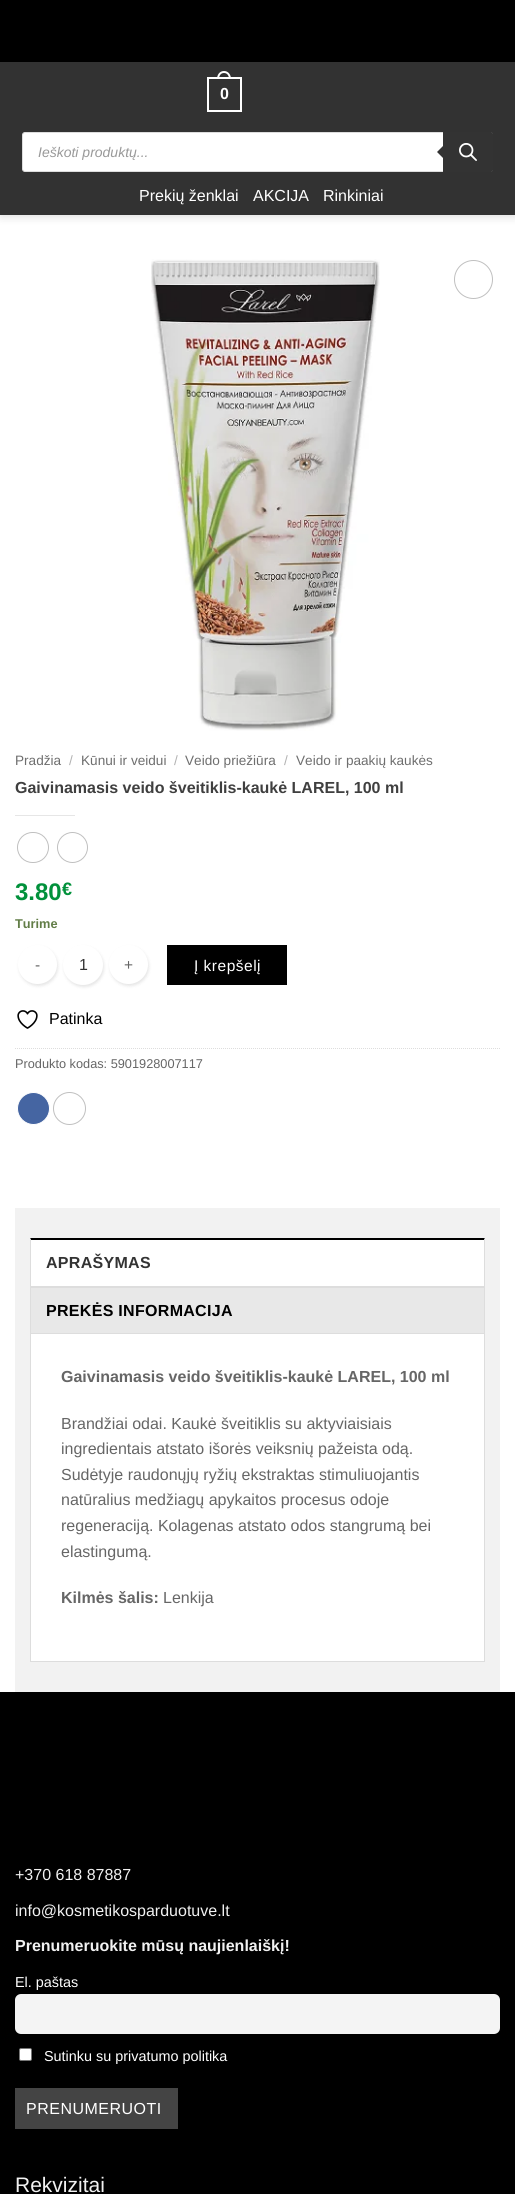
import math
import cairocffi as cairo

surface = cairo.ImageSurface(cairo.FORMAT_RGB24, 515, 2194)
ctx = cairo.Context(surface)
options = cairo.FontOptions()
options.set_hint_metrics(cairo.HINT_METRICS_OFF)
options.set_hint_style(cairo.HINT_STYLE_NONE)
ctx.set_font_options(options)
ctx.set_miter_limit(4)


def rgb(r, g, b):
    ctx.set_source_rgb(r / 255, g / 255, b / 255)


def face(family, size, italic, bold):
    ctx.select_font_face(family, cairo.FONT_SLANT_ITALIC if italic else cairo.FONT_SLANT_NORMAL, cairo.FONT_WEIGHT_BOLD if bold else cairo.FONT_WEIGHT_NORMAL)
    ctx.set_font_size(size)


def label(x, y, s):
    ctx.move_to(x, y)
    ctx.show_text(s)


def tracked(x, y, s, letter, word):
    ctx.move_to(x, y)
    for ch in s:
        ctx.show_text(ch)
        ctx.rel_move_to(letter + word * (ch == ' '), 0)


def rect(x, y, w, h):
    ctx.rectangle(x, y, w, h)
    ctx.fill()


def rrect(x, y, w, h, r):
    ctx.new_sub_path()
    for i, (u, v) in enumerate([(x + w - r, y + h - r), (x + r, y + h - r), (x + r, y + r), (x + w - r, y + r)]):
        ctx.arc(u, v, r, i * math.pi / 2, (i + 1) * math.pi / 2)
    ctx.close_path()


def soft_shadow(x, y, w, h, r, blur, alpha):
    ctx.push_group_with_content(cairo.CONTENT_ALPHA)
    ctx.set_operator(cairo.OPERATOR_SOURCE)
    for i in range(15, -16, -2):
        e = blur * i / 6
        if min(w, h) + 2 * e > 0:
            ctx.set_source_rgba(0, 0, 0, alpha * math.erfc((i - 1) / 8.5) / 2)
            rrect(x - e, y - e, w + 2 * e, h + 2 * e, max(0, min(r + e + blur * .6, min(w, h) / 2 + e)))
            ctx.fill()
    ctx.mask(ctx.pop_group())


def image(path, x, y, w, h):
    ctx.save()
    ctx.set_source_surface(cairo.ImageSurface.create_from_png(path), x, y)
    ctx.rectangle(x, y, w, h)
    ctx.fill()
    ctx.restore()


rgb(255, 255, 255)
ctx.paint()
rgb(0, 0, 0)
soft_shadow(1, 1, 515, 215, 0, 5, 0.15)
rgb(0, 0, 0)
rect(0, 0, 515, 62)
rgb(50, 50, 50)
rect(0, 62, 515, 153)
ctx.rectangle(208, 78, 33, 33)
rgb(255, 255, 255)
ctx.stroke()
ctx.set_fill_rule(cairo.FILL_RULE_EVEN_ODD)
ctx.new_path()
ctx.move_to(224, 71)
ctx.curve_to(228.5, 71, 231, 75, 231, 79)
ctx.line_to(217, 79)
ctx.curve_to(217, 75, 219.5, 71, 224, 71)
ctx.close_path()
ctx.move_to(224, 73)
ctx.curve_to(227.5, 73, 229, 76, 229, 79)
ctx.line_to(219, 79)
ctx.curve_to(219, 76, 220.5, 73, 224, 73)
ctx.close_path()
ctx.fill()
face('Liberation Sans', 16, 0, 1)
label(220, 99, '0')
rrect(22.5, 132.5, 470, 39, 2.5)
ctx.fill_preserve()
rgb(221, 221, 221)
ctx.set_line_width(1)
ctx.stroke()
face('Liberation Sans', 14, 1, 0)
rgb(153, 153, 153)
label(38, 157, 'Ieškoti produktų...')
rgb(51, 51, 51)
ctx.new_path()
ctx.move_to(443, 132)
ctx.line_to(491, 132)
ctx.curve_to(492, 132, 493, 133, 493, 134)
ctx.line_to(493, 170)
ctx.curve_to(493, 171, 492, 172, 491, 172)
ctx.line_to(443, 172)
ctx.close_path()
ctx.fill()
ctx.set_fill_rule(cairo.FILL_RULE_WINDING)
ctx.new_path()
ctx.move_to(445, 144)
ctx.line_to(445, 160)
ctx.line_to(437, 152)
ctx.close_path()
ctx.fill()
image('image0.png', 459, 143, 18, 18)
face('Liberation Sans', 16, 0, 0)
rgb(255, 255, 255)
label(139, 201, 'Prekių ženklai')
label(253, 201, 'AKCIJA')
label(323, 201, 'Rinkiniai')
image('image1.png', 151, 259, 229, 472)
ctx.arc(473.5, 279.5, 19, 0, 2 * math.pi)
rgb(192, 192, 192)
ctx.stroke()
face('Liberation Sans', 13.6, 0, 0)
rgb(110, 110, 110)
label(15, 765, 'Pradžia')
rgb(178, 178, 178)
label(69, 765, '/')
rgb(110, 110, 110)
label(81, 765, 'Kūnui ir veidui')
rgb(178, 178, 178)
label(174, 765, '/')
rgb(110, 110, 110)
label(185, 765, 'Veido priežiūra')
rgb(178, 178, 178)
label(284, 765, '/')
rgb(110, 110, 110)
label(296, 765, 'Veido ir paakių kaukės')
face('Liberation Sans', 16, 0, 1)
rgb(63, 63, 63)
label(15, 793, 'Gaivinamasis veido šveitiklis-kaukė LAREL, 100 ml')
rgb(230, 230, 230)
rect(15, 815, 60, 1)
rrect(17.5, 832.5, 31, 30, 15)
rgb(192, 192, 192)
ctx.stroke()
ctx.arc(72.5, 847.5, 15, 0, 2 * math.pi)
ctx.stroke()
face('Liberation Sans', 24, 0, 1)
rgb(1, 145, 59)
label(15, 900, '3.80')
face('Liberation Sans', 18, 0, 1)
label(62, 895, '€')
face('Liberation Sans', 12.75, 0, 1)
rgb(98, 125, 71)
label(15, 928, 'Turime')
rgb(0, 0, 0)
soft_shadow(64, 947, 40, 40, 20, 1.5, 0.1)
rgb(255, 255, 255)
ctx.arc(83, 965, 20, 0, 2 * math.pi)
ctx.fill()
rgb(0, 0, 0)
soft_shadow(19, 947, 39, 39, 19.5, 1.5, 0.1)
rgb(255, 255, 255)
ctx.arc(37.5, 964.5, 19.5, 0, 2 * math.pi)
ctx.fill()
face('Liberation Sans', 15.5, 0, 0)
rgb(102, 102, 102)
tracked(35, 970, '-', 0.5, 0)
face('Liberation Sans', 16, 0, 0)
rgb(51, 51, 51)
label(79, 970, '1')
rgb(0, 0, 0)
soft_shadow(110, 947, 39, 39, 19.5, 1.5, 0.1)
rgb(255, 255, 255)
ctx.arc(128.5, 964.5, 19.5, 0, 2 * math.pi)
ctx.fill()
face('Liberation Sans', 15.5, 0, 0)
rgb(102, 102, 102)
tracked(124, 970, '+', 0.5, 0)
rgb(0, 0, 0)
rect(167, 945, 120, 40)
rgb(255, 255, 255)
tracked(194, 971, 'Į krepšelį', 0.5, 0)
image('image2.png', 17, 1010, 21, 19)
face('Liberation Sans', 16, 0, 0)
rgb(0, 0, 0)
label(49, 1024, 'Patinka')
ctx.new_path()
ctx.move_to(15, 1048.5)
ctx.line_to(500, 1048.5)
rgb(221, 221, 221)
ctx.set_dash([1, 1])
ctx.stroke()
face('Liberation Sans', 12.75, 0, 0)
rgb(102, 102, 102)
label(15, 1068, 'Produkto kodas: 5901928007117')
rgb(69, 101, 162)
ctx.new_path()
ctx.arc(33.5, 1108.5, 16, 0, 2 * math.pi)
ctx.fill_preserve()
rgb(255, 255, 255)
ctx.set_dash([])
ctx.stroke()
ctx.arc(69.5, 1108.5, 16, 0, 2 * math.pi)
rgb(192, 192, 192)
ctx.stroke()
rgb(242, 242, 242)
rect(15, 1208, 485, 484)
rgb(255, 255, 255)
rect(30, 1238, 455, 48)
rgb(0, 0, 0)
ctx.new_path()
ctx.move_to(30, 1238)
ctx.line_to(485, 1238)
ctx.line_to(484, 1240)
ctx.line_to(31, 1240)
ctx.close_path()
ctx.fill()
rgb(221, 221, 221)
ctx.new_path()
ctx.move_to(485, 1238)
ctx.line_to(485, 1286)
ctx.line_to(484, 1286)
ctx.line_to(484, 1240)
ctx.close_path()
ctx.fill()
ctx.new_path()
ctx.move_to(30, 1286)
ctx.line_to(30, 1238)
ctx.line_to(31, 1240)
ctx.line_to(31, 1286)
ctx.close_path()
ctx.fill()
face('Liberation Sans', 16, 0, 1)
rgb(51, 51, 51)
tracked(46, 1268, 'APRAŠYMAS', 0.3, 0)
rgb(232, 232, 232)
rect(31, 1288, 453, 45)
rgb(221, 221, 221)
rect(30, 1286, 455, 2)
rect(484, 1286, 1, 47)
rect(30, 1286, 1, 47)
rgb(0, 0, 0)
tracked(46, 1316, 'PREKĖS INFORMACIJA', 0.3, 0)
rgb(255, 255, 255)
ctx.rectangle(30.5, 1333.5, 454, 328)
ctx.fill_preserve()
rgb(221, 221, 221)
ctx.stroke()
rgb(102, 102, 102)
label(61, 1382, 'Gaivinamasis veido šveitiklis-kaukė LAREL, 100 ml')
face('Liberation Sans', 16, 0, 0)
label(61, 1429, 'Brandžiai odai. Kaukė šveitiklis su aktyviaisiais')
label(61, 1454, 'ingredientais atstato išorės veiksnių pažeista odą.')
label(61, 1480, 'Sudėtyje raudonųjų ryžių ekstraktas stimuliuojantis')
label(61, 1505, 'natūralius medžiagų apykaitos procesus odoje')
label(61, 1531, 'regeneraciją. Kolagenas atstato odos stangrumą bei')
label(61, 1557, 'elastingumą.')
face('Liberation Sans', 16, 0, 1)
label(61, 1603, 'Kilmės šalis:')
face('Liberation Sans', 16, 0, 0)
label(163, 1603, 'Lenkija')
rgb(0, 0, 0)
rect(0, 1692, 515, 502)
rgb(241, 241, 241)
label(15, 1880, '+370 618 87887')
label(15, 1916, 'info@kosmetikosparduotuve.lt')
face('Liberation Sans', 16, 0, 1)
label(15, 1951, 'Prenumeruokite mūsų naujienlaiškį!')
face('Liberation Sans', 14.4, 0, 0)
rgb(255, 255, 255)
label(15, 1987, 'El. paštas')
rgb(244, 244, 244)
rrect(15, 1994, 485, 40, 6)
ctx.fill()
rgb(255, 255, 255)
rrect(19.5, 2048.5, 12, 12, 1.5)
ctx.fill_preserve()
rgb(118, 118, 118)
ctx.stroke()
rgb(255, 255, 255)
label(44, 2061, 'Sutinku su privatumo politika')
rgb(68, 68, 68)
rect(15, 2088, 163, 41)
face('Liberation Sans', 16, 0, 0)
rgb(255, 255, 255)
tracked(26, 2114, 'PRENUMERUOTI', 0.5, 0)
face('Liberation Sans', 21, 0, 0)
rgb(241, 241, 241)
label(15, 2192, 'Rekvizitai')
surface.write_to_png('render.png')
